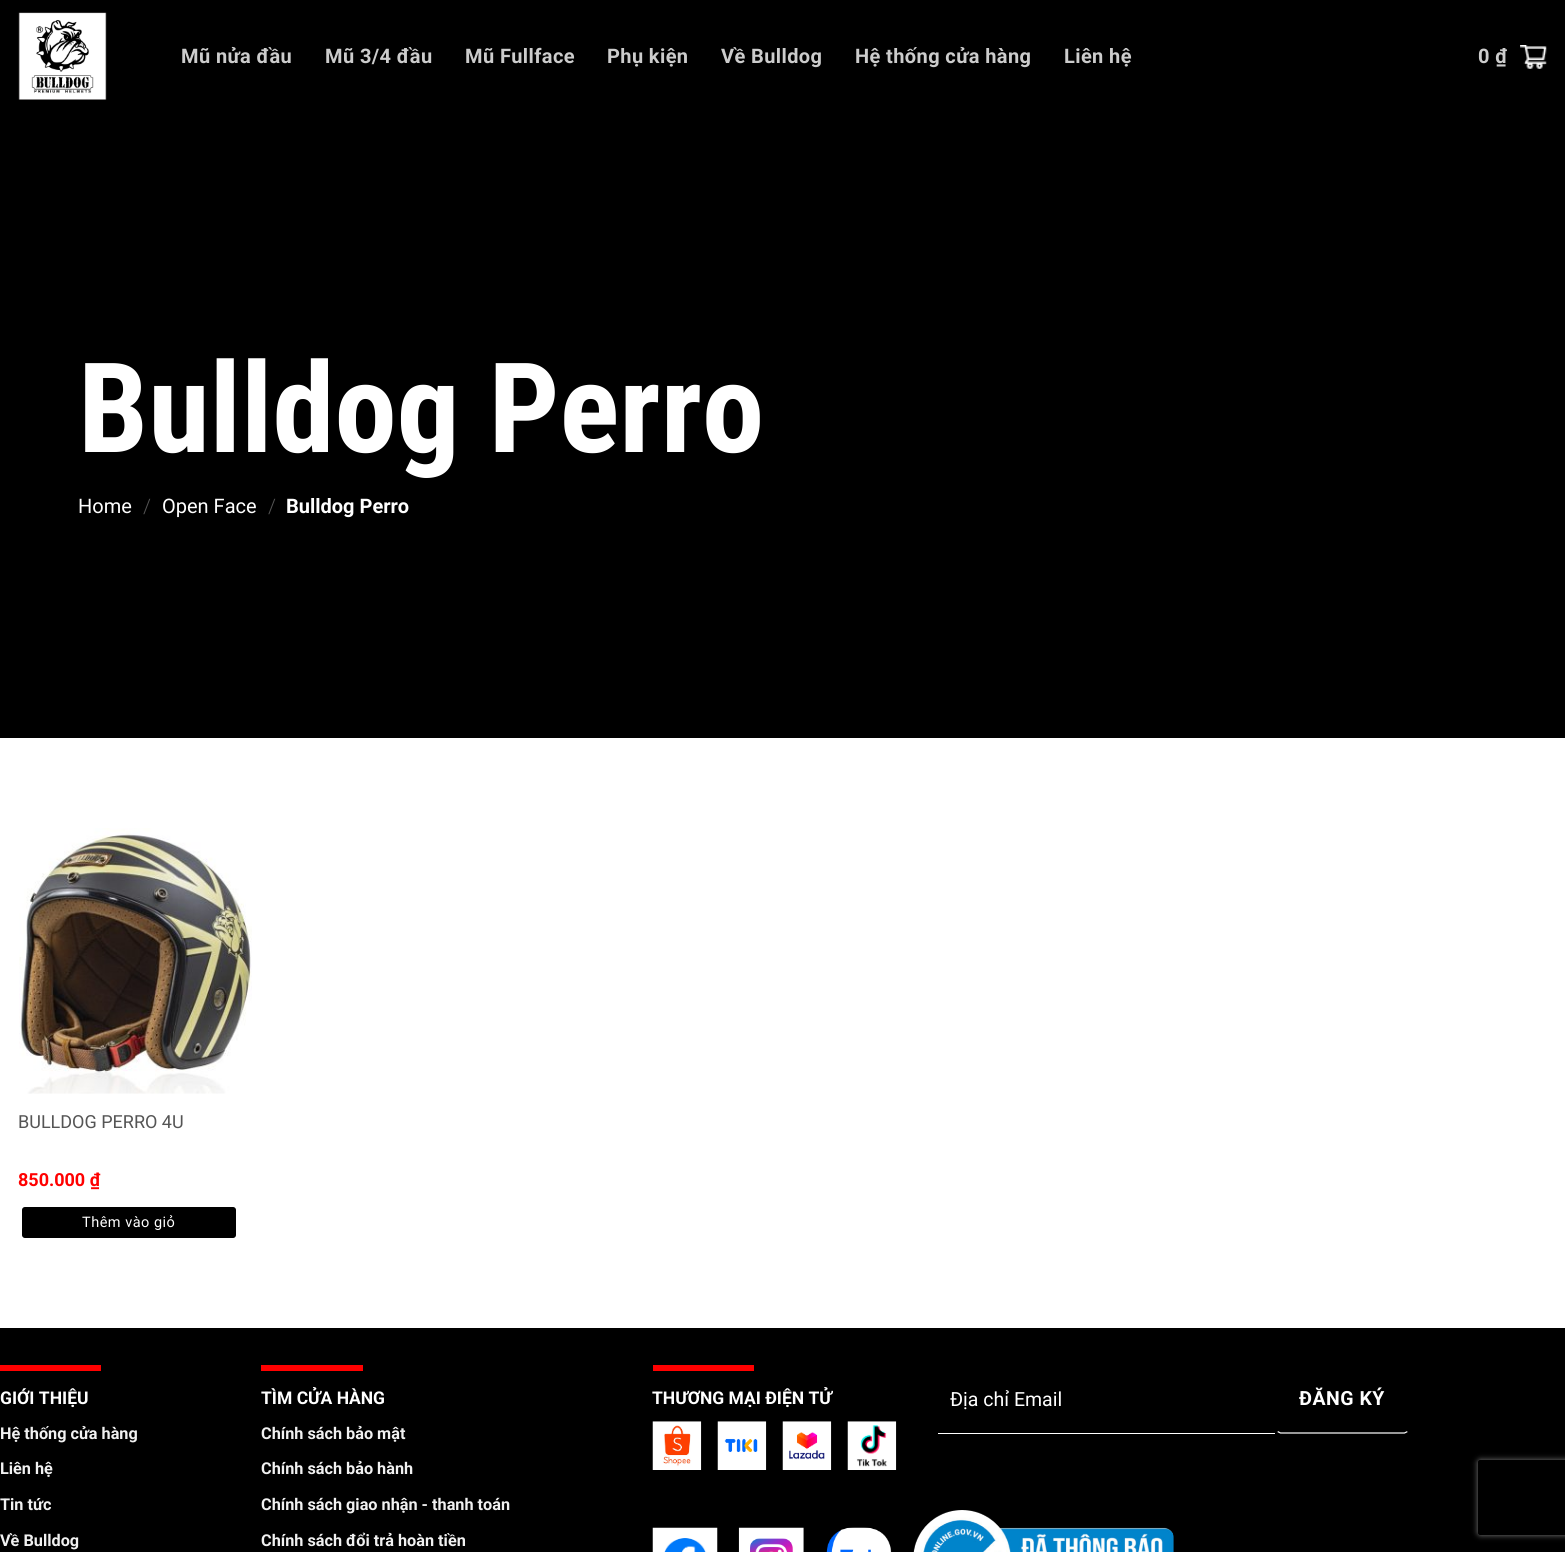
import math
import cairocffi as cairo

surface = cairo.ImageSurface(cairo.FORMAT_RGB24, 1565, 1552)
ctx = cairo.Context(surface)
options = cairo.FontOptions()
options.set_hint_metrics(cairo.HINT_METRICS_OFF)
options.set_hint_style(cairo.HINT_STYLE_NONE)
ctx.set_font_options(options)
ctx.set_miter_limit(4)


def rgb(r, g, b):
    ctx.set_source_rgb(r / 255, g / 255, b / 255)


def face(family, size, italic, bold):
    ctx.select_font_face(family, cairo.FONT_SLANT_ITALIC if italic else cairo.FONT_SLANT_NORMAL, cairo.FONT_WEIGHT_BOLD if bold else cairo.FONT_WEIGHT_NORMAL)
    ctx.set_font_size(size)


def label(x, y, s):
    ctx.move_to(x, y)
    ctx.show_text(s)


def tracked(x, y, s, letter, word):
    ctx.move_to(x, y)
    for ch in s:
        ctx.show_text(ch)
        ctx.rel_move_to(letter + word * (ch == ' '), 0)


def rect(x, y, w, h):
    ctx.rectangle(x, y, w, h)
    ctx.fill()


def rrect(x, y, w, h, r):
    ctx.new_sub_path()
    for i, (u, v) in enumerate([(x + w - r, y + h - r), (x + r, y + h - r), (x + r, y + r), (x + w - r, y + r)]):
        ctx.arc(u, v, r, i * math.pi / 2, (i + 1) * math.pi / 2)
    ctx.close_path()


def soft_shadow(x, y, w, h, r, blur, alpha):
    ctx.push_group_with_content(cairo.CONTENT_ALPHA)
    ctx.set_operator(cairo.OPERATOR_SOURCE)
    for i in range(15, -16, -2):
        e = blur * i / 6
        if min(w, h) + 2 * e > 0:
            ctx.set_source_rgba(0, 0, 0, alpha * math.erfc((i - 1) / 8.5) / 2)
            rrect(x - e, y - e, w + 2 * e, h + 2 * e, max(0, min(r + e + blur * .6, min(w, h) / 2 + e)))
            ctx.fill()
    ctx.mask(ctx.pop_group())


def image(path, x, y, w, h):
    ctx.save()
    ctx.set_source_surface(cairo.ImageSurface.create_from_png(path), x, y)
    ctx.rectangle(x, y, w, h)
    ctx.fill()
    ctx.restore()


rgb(255, 255, 255)
ctx.paint()
rgb(0, 0, 0)
rect(0, 0, 1565, 738)
image('image0.png', 18, 12, 89, 88)
face('Roboto', 20, 0, 1)
rgb(204, 204, 204)
tracked(181, 63, 'Mũ nửa đầu', 0.4, 0)
tracked(325, 63, 'Mũ 3/4 đầu', 0.4, 0)
tracked(465, 63, 'Mũ Fullface', 0.4, 0)
tracked(607, 63, 'Phụ kiện', 0.4, 0)
tracked(721, 63, 'Về Bulldog', 0.4, 0)
tracked(855, 63, 'Hệ thống cửa hàng', 0.4, 0)
tracked(1064, 63, 'Liên hệ', 0.4, 0)
tracked(1478, 63, '0 ₫', 0.4, 0)
image('image1.png', 1520, 45, 27, 24)
face('Roboto Condensed', 125, 0, 1)
rgb(255, 255, 255)
label(78, 452, 'Bulldog Perro')
face('Roboto', 20, 0, 0)
label(78, 513, 'Home')
face('Roboto Light', 20, 0, 0)
rgb(85, 85, 85)
label(143, 513, '/')
face('Roboto', 20, 0, 0)
rgb(255, 255, 255)
label(162, 513, 'Open Face')
face('Roboto Light', 20, 0, 0)
rgb(85, 85, 85)
label(268, 513, '/')
face('Roboto', 20, 0, 1)
rgb(255, 255, 255)
label(286, 513, 'Bulldog Perro')
image('image2.png', 19, 828, 233, 266)
face('Roboto', 18, 0, 0)
rgb(85, 85, 85)
label(18, 1128, 'BULLDOG PERRO 4U')
face('Roboto', 18, 0, 1)
rgb(255, 0, 0)
label(18, 1186, '850.000 ₫')
rgb(0, 0, 0)
rrect(20.5, 1205.5, 217, 34, 4.5)
ctx.fill_preserve()
rgb(255, 255, 255)
ctx.set_line_width(3)
ctx.stroke()
face('Roboto', 14.5, 0, 0)
tracked(82, 1227, 'Thêm vào giỏ', 0.5, 0)
rgb(0, 0, 0)
rect(0, 1328, 1565, 224)
rgb(255, 0, 0)
rect(0, 1365, 101, 6)
face('Roboto', 17.5, 0, 1)
rgb(255, 255, 255)
label(0, 1404, 'GIỚI THIỆU')
face('Roboto', 16.25, 0, 1)
rgb(241, 241, 241)
label(0, 1439, 'Hệ thống cửa hàng')
label(0, 1474, 'Liên hệ')
label(0, 1510, 'Tin tức')
label(0, 1546, 'Về Bulldog')
rgb(255, 0, 0)
rect(261, 1365, 102, 6)
face('Roboto', 17.5, 0, 1)
rgb(255, 255, 255)
label(261, 1404, 'TÌM CỬA HÀNG')
face('Roboto', 16.25, 0, 1)
rgb(241, 241, 241)
label(261, 1439, 'Chính sách bảo mật')
label(261, 1474, 'Chính sách bảo hành')
label(261, 1510, 'Chính sách giao nhận - thanh toán')
label(261, 1546, 'Chính sách đổi trả hoàn tiền')
rgb(255, 0, 0)
rect(653, 1365, 101, 6)
face('Roboto', 17.5, 0, 1)
rgb(255, 255, 255)
label(652, 1404, 'THƯƠNG MẠI ĐIỆN TỬ')
image('image3.png', 652, 1421, 50, 49)
image('image4.png', 717, 1421, 50, 49)
image('image5.png', 782, 1421, 50, 49)
image('image6.png', 847, 1421, 50, 49)
image('image7.png', 652, 1527, 66, 25)
image('image8.png', 738, 1527, 66, 25)
image('image9.png', 826, 1527, 66, 25)
rect(938, 1433, 337, 1)
face('Roboto', 19.5, 0, 0)
label(950, 1406, 'Địa chỉ Email')
ctx.new_path()
ctx.move_to(1407.5, 1431.5)
ctx.line_to(1404.5, 1433)
ctx.line_to(1280.5, 1433)
ctx.line_to(1277.5, 1431.5)
ctx.set_line_width(1.2)
ctx.stroke()
ctx.new_path()
ctx.move_to(1277.5, 1431.5)
ctx.curve_to(1276, 1430.5, 1275.5, 1429, 1275.5, 1427.5)
ctx.line_to(1275.5, 1371)
ctx.curve_to(1275.5, 1370, 1276, 1368.5, 1277.5, 1367.5)
ctx.curve_to(1278.5, 1366, 1280, 1365.5, 1281, 1365.5)
ctx.line_to(1404, 1365.5)
ctx.curve_to(1405, 1365.5, 1406.5, 1366, 1407.5, 1367.5)
ctx.curve_to(1409, 1368.5, 1409.5, 1370, 1409.5, 1371)
ctx.line_to(1409.5, 1427.5)
ctx.curve_to(1409.5, 1429, 1409, 1430.5, 1407.5, 1431.5)
rgb(0, 0, 0)
ctx.stroke()
face('Roboto', 19.5, 0, 1)
rgb(255, 255, 255)
tracked(1299, 1405, 'ĐĂNG KÝ', 0.5, 0)
image('image10.png', 913, 1510, 261, 42)
ctx.save()
ctx.set_fill_rule(cairo.FILL_RULE_EVEN_ODD)
ctx.new_path()
ctx.move_to(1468, 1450)
ctx.line_to(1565, 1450)
ctx.line_to(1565, 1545)
ctx.line_to(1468, 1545)
ctx.close_path()
ctx.move_to(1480.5, 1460)
ctx.line_to(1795.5, 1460)
ctx.curve_to(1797, 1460, 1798, 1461, 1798, 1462.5)
ctx.line_to(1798, 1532.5)
ctx.curve_to(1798, 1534, 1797, 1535, 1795.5, 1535)
ctx.line_to(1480.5, 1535)
ctx.curve_to(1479, 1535, 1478, 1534, 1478, 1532.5)
ctx.line_to(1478, 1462.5)
ctx.curve_to(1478, 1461, 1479, 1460, 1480.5, 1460)
ctx.close_path()
ctx.clip()
rgb(128, 128, 128)
soft_shadow(1478, 1460, 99, 75, 2.5, 3, 1)
ctx.restore()
surface.write_to_png('render.png')
